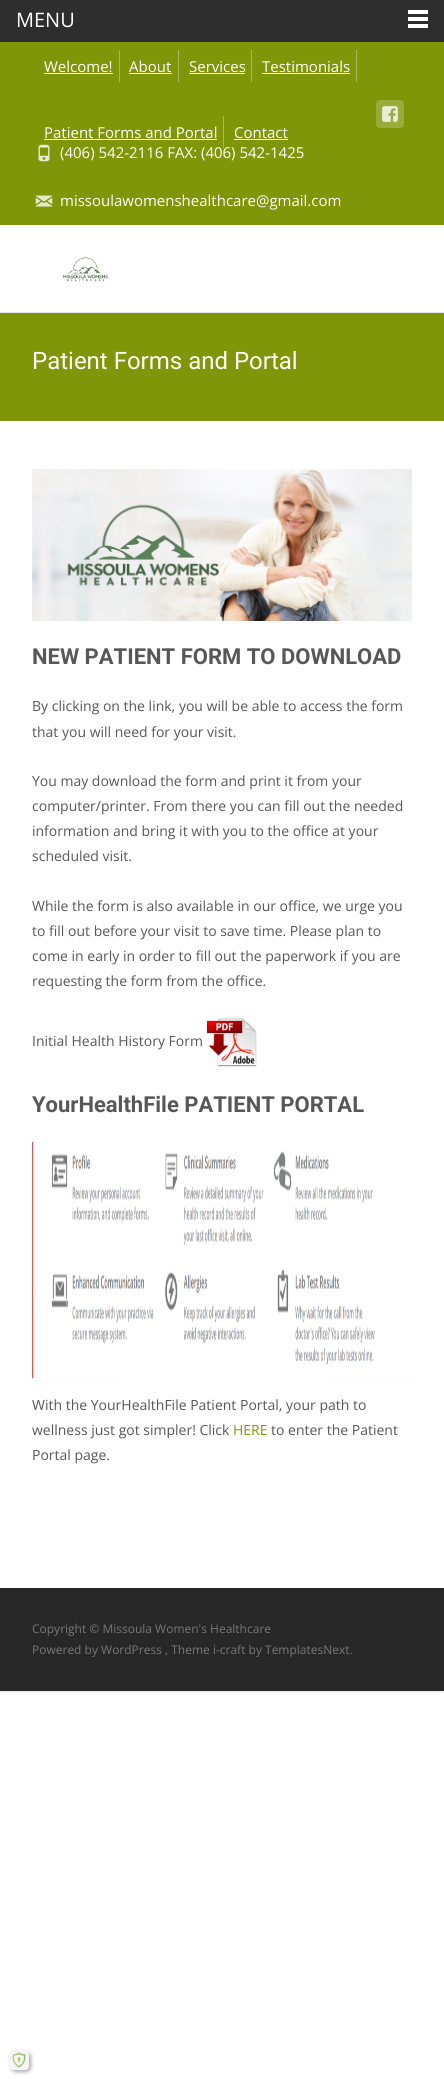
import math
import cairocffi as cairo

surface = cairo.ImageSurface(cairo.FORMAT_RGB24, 444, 2079)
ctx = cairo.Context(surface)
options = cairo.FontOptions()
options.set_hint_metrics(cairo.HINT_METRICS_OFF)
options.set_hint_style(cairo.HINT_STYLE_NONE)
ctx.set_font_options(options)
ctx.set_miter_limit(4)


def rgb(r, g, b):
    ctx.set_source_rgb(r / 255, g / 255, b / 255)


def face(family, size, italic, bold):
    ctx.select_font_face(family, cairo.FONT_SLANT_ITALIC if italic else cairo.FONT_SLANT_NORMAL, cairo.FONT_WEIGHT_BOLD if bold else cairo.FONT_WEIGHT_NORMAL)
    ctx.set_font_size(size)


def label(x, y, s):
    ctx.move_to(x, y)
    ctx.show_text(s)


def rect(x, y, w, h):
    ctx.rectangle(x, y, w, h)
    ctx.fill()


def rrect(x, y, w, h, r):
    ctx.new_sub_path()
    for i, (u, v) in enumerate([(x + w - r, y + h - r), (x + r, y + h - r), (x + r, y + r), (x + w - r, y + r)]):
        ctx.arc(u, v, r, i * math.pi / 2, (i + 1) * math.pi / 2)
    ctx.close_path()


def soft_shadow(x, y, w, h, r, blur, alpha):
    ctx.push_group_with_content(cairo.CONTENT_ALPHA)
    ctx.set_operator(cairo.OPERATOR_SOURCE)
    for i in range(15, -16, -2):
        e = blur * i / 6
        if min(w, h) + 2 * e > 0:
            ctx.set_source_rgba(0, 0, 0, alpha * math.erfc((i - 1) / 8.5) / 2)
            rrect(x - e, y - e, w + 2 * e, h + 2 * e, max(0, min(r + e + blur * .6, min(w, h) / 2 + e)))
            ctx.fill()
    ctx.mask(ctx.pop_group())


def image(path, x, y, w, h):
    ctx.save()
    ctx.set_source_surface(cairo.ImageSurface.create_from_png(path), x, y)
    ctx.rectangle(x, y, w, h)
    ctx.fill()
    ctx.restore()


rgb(255, 255, 255)
ctx.paint()
rgb(0, 0, 0)
soft_shadow(0, 42, 444, 1649, 2, 2, 0.1)
soft_shadow(0, 42, 444, 1649, 2, 2, 0.1)
rgb(46, 46, 46)
rect(0, 0, 444, 42)
face('Open Sans', 20, 0, 0)
rgb(255, 255, 255)
label(16, 27, 'MENU')
rect(408, 10, 20, 4)
rect(408, 17, 20, 4)
rect(408, 24, 20, 4)
rect(0, 225, 444, 1363)
rgb(127, 150, 8)
rect(0, 42, 444, 183)
rgb(168, 184, 87)
rect(119, 50, 1, 32)
face('Open Sans', 15, 0, 0)
rgb(255, 255, 255)
label(44, 72, 'Welcome!')
rect(44, 73, 69, 1)
rgb(168, 184, 87)
rect(178, 50, 1, 32)
rgb(255, 255, 255)
label(129, 72, 'About')
rect(129, 73, 43, 1)
rgb(168, 184, 87)
rect(251, 50, 1, 32)
rgb(255, 255, 255)
label(189, 72, 'Services')
rect(189, 73, 56, 1)
rgb(168, 184, 87)
rect(356, 50, 1, 32)
rgb(255, 255, 255)
label(262, 72, 'Testimonials')
rect(262, 73, 88, 1)
label(60, 158, '(406) 542-2116 FAX: (406) 542-1425')
rgb(168, 184, 87)
rect(223, 116, 1, 32)
rgb(255, 255, 255)
label(44, 138, 'Patient Forms and Portal')
rect(44, 139, 173, 1)
label(234, 138, 'Contact')
rect(234, 139, 54, 1)
rgb(153, 171, 57)
rrect(376, 100, 28, 28, 4)
ctx.fill()
image('image0.png', 382, 106, 16, 16)
image('image1.png', 38, 144, 12, 18)
image('image2.png', 35, 195, 18, 12)
rgb(255, 255, 255)
label(60, 206, 'missoulawomenshealthcare@gmail.com')
rgb(231, 231, 231)
rect(0, 312, 444, 1)
image('image3.png', 62, 257, 47, 25)
rgb(127, 150, 8)
rect(0, 313, 444, 108)
face('Roboto', 24, 0, 0)
rgb(255, 255, 255)
label(32, 369, 'Patient Forms and Portal')
image('image4.png', 32, 469, 380, 152)
face('Roboto', 22, 0, 1)
rgb(87, 87, 87)
label(32, 664, 'NEW PATIENT FORM TO DOWNLOAD')
face('Open Sans', 14, 0, 0)
label(32, 711, 'By clicking on the link, you will be able to access the form')
label(32, 737, 'that you will need for your visit.')
label(32, 786, 'You may download the form and print it from your')
label(32, 811, 'computer/printer. From there you can fill out the needed')
label(32, 836, 'information and bring it with you to the office at your')
label(32, 861, 'scheduled visit.')
label(32, 911, 'While the form is also available in our office, we urge you')
label(32, 936, 'to fill out before your visit to save time. Please plan to')
label(32, 961, 'come in early in order to fill out the paperwork if you are')
label(32, 986, 'requesting the form from the office.')
label(32, 1046, 'Initial Health History Form')
image('image5.png', 207, 1018, 50, 49)
face('Roboto', 22, 0, 1)
label(32, 1112, 'YourHealthFile PATIENT PORTAL')
image('image6.png', 32, 1142, 380, 236)
face('Open Sans', 14, 0, 0)
label(32, 1410, 'With the YourHealthFile Patient Portal, your path to')
label(32, 1435, 'wellness just got simpler! Click')
rgb(127, 150, 8)
label(233, 1435, 'HERE')
rgb(87, 87, 87)
label(271, 1435, 'to enter the Patient')
label(32, 1460, 'Portal page.')
rgb(39, 39, 39)
rect(0, 1588, 444, 103)
face('Open Sans', 12, 0, 0)
rgb(119, 119, 119)
label(32, 1633, 'Copyright © Missoula Women\'s Healthcare')
label(32, 1654, 'Powered by WordPress , Theme i-craft by TemplatesNext.')
ctx.save()
ctx.set_fill_rule(cairo.FILL_RULE_EVEN_ODD)
ctx.new_path()
ctx.move_to(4, 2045)
ctx.line_to(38, 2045)
ctx.line_to(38, 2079)
ctx.line_to(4, 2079)
ctx.close_path()
ctx.move_to(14, 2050)
ctx.line_to(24, 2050)
ctx.curve_to(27, 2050, 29, 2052, 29, 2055)
ctx.line_to(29, 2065)
ctx.curve_to(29, 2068, 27, 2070, 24, 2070)
ctx.line_to(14, 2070)
ctx.curve_to(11, 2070, 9, 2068, 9, 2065)
ctx.line_to(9, 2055)
ctx.curve_to(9, 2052, 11, 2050, 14, 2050)
ctx.close_path()
ctx.clip()
rgb(77, 77, 77)
soft_shadow(11, 2052, 20, 20, 5, 2, 0.47)
ctx.restore()
ctx.set_source_rgba(0.961, 0.961, 0.961, 0.99)
rrect(9, 2050, 20, 20, 5)
ctx.fill()
image('image7.png', 12, 2052, 14, 16)
surface.write_to_png('render.png')
